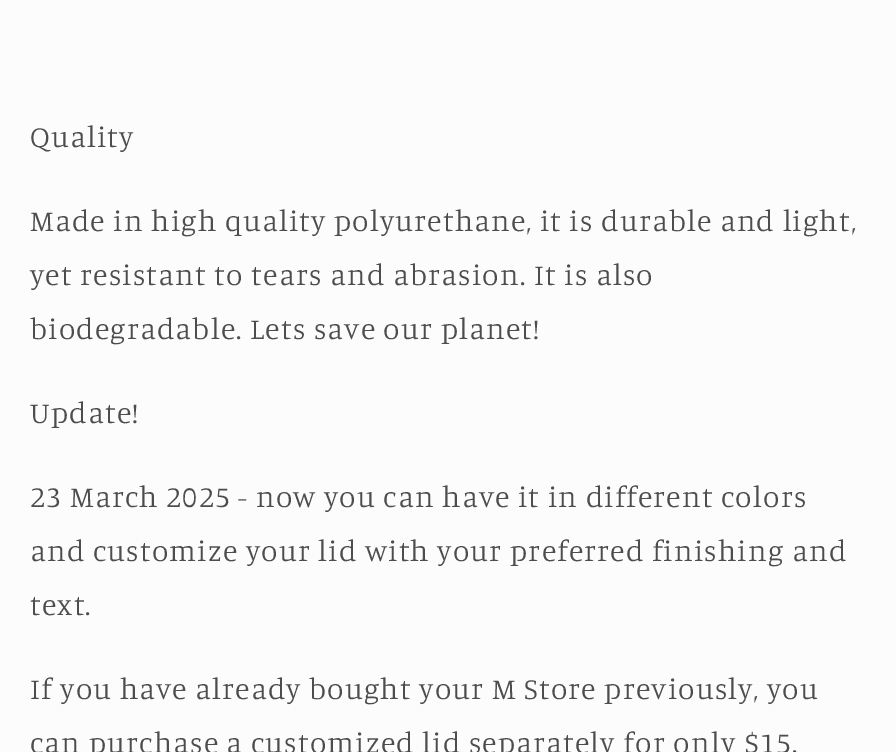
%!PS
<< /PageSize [896 752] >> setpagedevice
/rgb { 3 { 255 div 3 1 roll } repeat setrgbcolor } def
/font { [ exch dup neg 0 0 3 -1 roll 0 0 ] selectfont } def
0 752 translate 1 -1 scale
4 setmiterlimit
252 252 252 rgb
0 0 896 752 rectfill
/Manuale-Light 30 font
77 77 77 rgb
30 147 moveto 1.2 0 (Quality) ashow
30 231 moveto 1.2 0 (Made in high quality polyurethane, it is durable and light,) ashow
30 285 moveto 1.2 0 (yet resistant to tears and abrasion. It is also) ashow
30 339 moveto 1.2 0 (biodegradable. Lets save our planet!) ashow
30 423 moveto 1.2 0 (Update!) ashow
30 507 moveto 1.2 0 (23 March 2025 - now you can have it in different colors) ashow
30 561 moveto 1.2 0 (and customize your lid with your preferred finishing and) ashow
30 615 moveto 1.2 0 (text.) ashow
30 699 moveto 1.2 0 (If you have already bought your M Store previously, you) ashow
30 753 moveto 1.2 0 (can purchase a customized lid separately for only $15.) ashow
showpage
